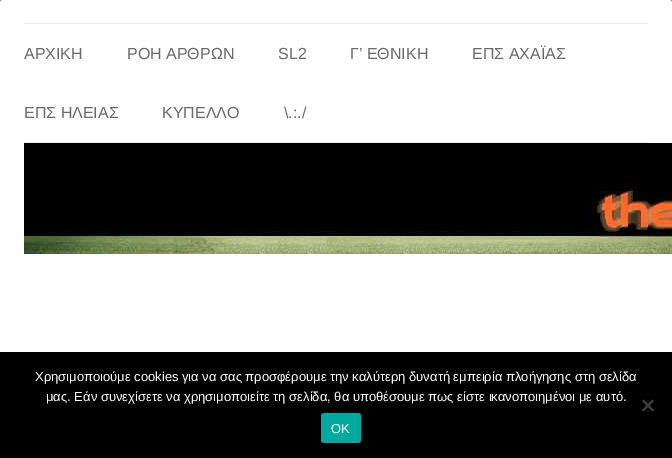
%!PS
<< /PageSize [672 458] >> setpagedevice
/rgb { 3 { 255 div 3 1 roll } repeat setrgbcolor } def
/font { [ exch dup neg 0 0 3 -1 roll 0 0 ] selectfont } def
/roundrect { 5 dict begin { /r /h /w /y /x } { exch def } forall
  x r add y moveto x w add y 2 copy h add r arct x w add y h add x 1 index r arct
  x y h add x y r arct x y 2 copy exch w add exch r arct closepath end } def
/picture { 5 dict begin { /h /w /y /x /name } { exch def } forall
  gsave x y translate w h scale
  w h 8 [w 0 0 h 0 0] name (r) file false 3 colorimage grestore end } def
0 458 translate 1 -1 scale
4 setmiterlimit
255 255 255 rgb
0 0 672 458 rectfill
(img/1.rgb) 0 0 672 3 picture
0 0 672 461 3 roundrect fill
237 237 237 rgb
24 23 624 1 rectfill
24 142 624 1 rectfill
(img/2.rgb) 24 143 648 111 picture
0 0 0 rgb
0 352 672 106 rectfill
64 64 64 rgb
652.5 399.5 moveto 654 401 lineto 643.5 411.5 lineto 642 410 lineto closepath fill
642 401 moveto 643.5 399.5 lineto 654 410 lineto 652.5 411.5 lineto closepath fill
0 169 157 rgb
321 413 40 30 3 roundrect fill
/LiberationSans-Regular 16 font
106 106 106 rgb
[
  [(ΑΡΧΙΚΗ) 24 59]
  [(ΡΟΗ ΑΡΘΡΩΝ) 127 59]
  [(SL2) 278 59]
  [(Γ’ ΕΘΝΙΚΗ) 350 59]
  [(ΕΠΣ ΑΧΑΪΑΣ) 472 59]
  [(ΕΠΣ ΗΛΕΙΑΣ) 24 118]
  [(ΚΥΠΕΛΛΟ) 162 118]
  [(\\.:./) 284 118]
] { aload pop moveto show } forall
/LiberationSans-Regular 13 font
255 255 255 rgb
[
  [(Χρησιμοποιούμε cookies για να σας προσφέρουμε την καλύτερη δυνατή εμπειρία πλοήγησης στη σελίδα) 35 381]
  [(μας. Εάν συνεχίσετε να χρησιμοποιείτε τη σελίδα, θα υποθέσουμε πως είστε ικανοποιημένοι με αυτό.) 46 401]
  [(ΟΚ) 331 433]
] { aload pop moveto show } forall
showpage
